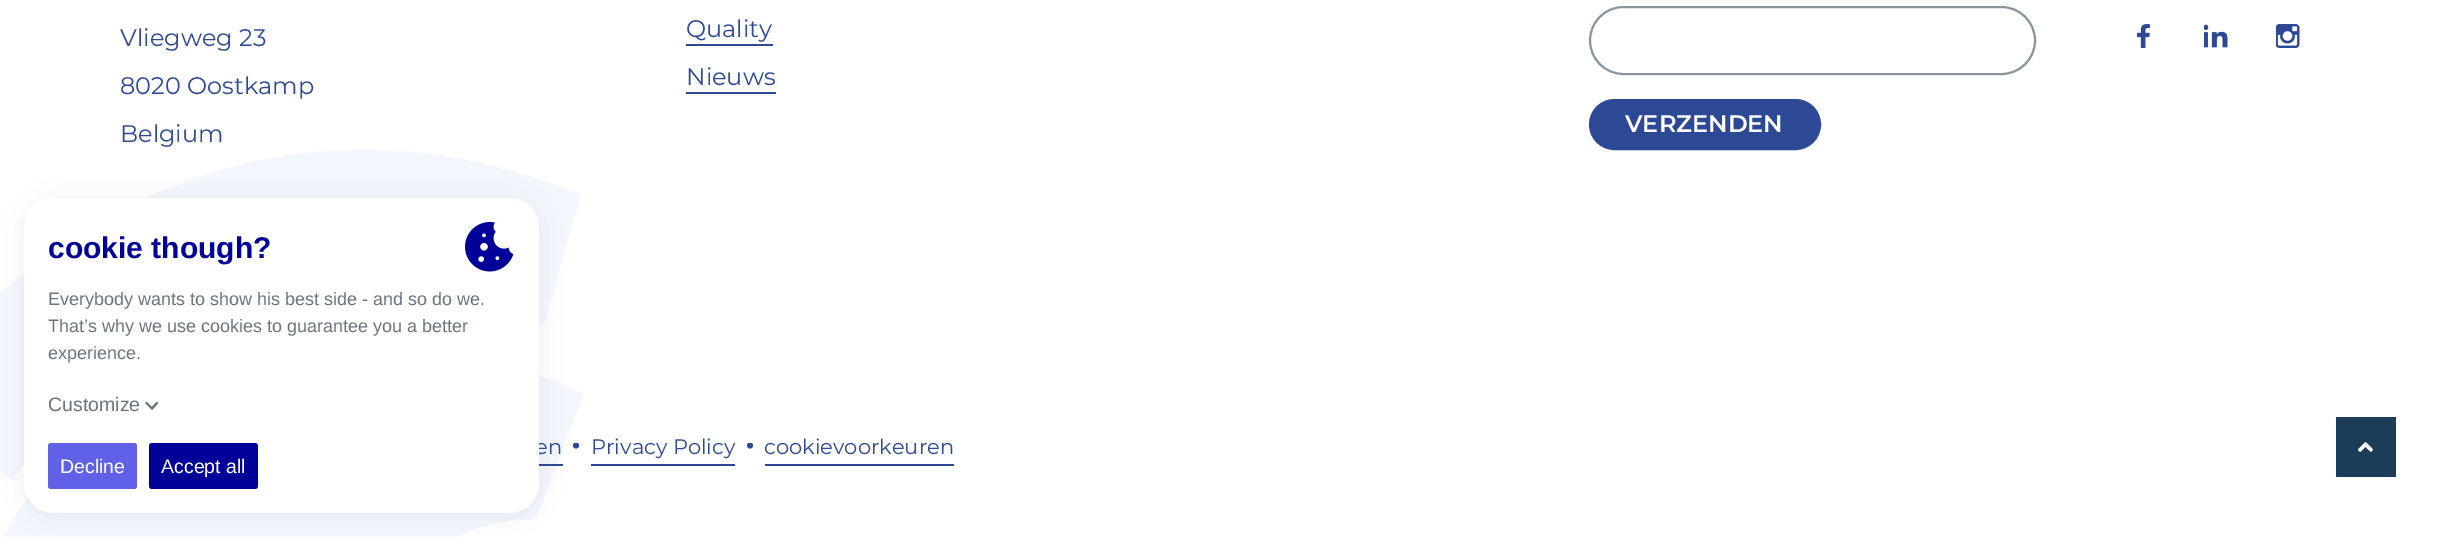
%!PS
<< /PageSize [2455 537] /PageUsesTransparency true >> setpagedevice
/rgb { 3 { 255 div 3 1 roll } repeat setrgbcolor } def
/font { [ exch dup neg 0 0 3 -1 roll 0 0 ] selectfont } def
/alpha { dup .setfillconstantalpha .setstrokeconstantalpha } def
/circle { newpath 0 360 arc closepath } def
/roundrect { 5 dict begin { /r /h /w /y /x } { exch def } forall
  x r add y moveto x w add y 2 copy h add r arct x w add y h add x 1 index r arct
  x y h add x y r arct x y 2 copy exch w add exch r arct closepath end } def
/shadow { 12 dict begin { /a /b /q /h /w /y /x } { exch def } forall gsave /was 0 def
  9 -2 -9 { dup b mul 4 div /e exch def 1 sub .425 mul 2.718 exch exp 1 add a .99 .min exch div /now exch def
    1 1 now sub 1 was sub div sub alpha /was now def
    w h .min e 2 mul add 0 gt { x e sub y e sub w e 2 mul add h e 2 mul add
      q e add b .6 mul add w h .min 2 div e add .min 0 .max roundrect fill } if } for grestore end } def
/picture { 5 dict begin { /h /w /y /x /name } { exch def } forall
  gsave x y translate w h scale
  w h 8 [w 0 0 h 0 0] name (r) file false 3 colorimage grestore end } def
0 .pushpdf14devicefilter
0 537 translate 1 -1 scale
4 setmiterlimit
255 255 255 rgb
0 0 2455 537 rectfill
(img/1.rgb) 0 149 584 388 picture
45 73 150 rgb
686 44 87 2 rectfill
686 92 90 2 rectfill
(img/2.rgb) 2137 24 13 24 picture
(img/3.rgb) 2204 24 24 24 picture
(img/4.rgb) 2276 24 24 24 picture
135 149 161 rgb
2 setlinewidth
1590 7 445 67 33.5 roundrect stroke
45 73 150 rgb
1590 100 230 49 24.5 roundrect gsave fill grestore
stroke
539 464 24 2 rectfill
gsave
573 443 6 6 rectclip
576 445.5 3 circle fill
grestore
591 464 144 2 rectfill
gsave
747 443 6 6 rectclip
750 445.5 3 circle fill
grestore
765 464 189 2 rectfill
28 61 90 rgb
2336 417 60 60 rectfill
(img/5.rgb) 2358 442 15 10 picture
1 1 63 rgb
30 207 503 303 24 14 0.1 shadow
/Montserrat-Regular 24 font
45 73 150 rgb
[
  [(Vliegweg 23) 120 46]
  [(8020 Oostkamp) 120 94]
  [(Belgium) 120 142]
  [(Quality) 686 37]
  [(Nieuws) 686 85]
] { aload pop moveto show } forall
/Montserrat-SemiBold 24 font
255 255 255 rgb
1625 132 moveto (VERZENDEN) show
/Montserrat-Regular 21 font
45 73 150 rgb
[
  [(en) 535 454]
  [(Privacy Policy) 591 454]
  [(cookievoorkeuren) 764 454]
] { aload pop moveto show } forall
255 255 255 rgb
24 198 515 315 30 roundrect fill
/LiberationSans-Bold 30 font
0 0 153 rgb
48 258 moveto (cookie though?) show
(img/6.rgb) 465 222 49 50 picture
/LiberationSans-Regular 18 font
107 114 128 rgb
[
  [(Everybody wants to show his best side - and so do we.) 48 305]
  [(That’s why we use cookies to guarantee you a better) 48 332]
  [(experience.) 48 359]
] { aload pop moveto show } forall
/LiberationSans-Regular 19.5 font
48 411 moveto (Customize) show
2.1 setlinewidth
1 setlinecap
146.5 403 moveto 152 408.5 lineto 157 403 lineto stroke
97 97 232 rgb
48 443 89 46 3 roundrect fill
255 255 255 rgb
60 473 moveto (Decline) show
0 0 153 rgb
149 443 109 46 3 roundrect fill
255 255 255 rgb
161 473 moveto (Accept all) show
.poppdf14devicefilter showpage
